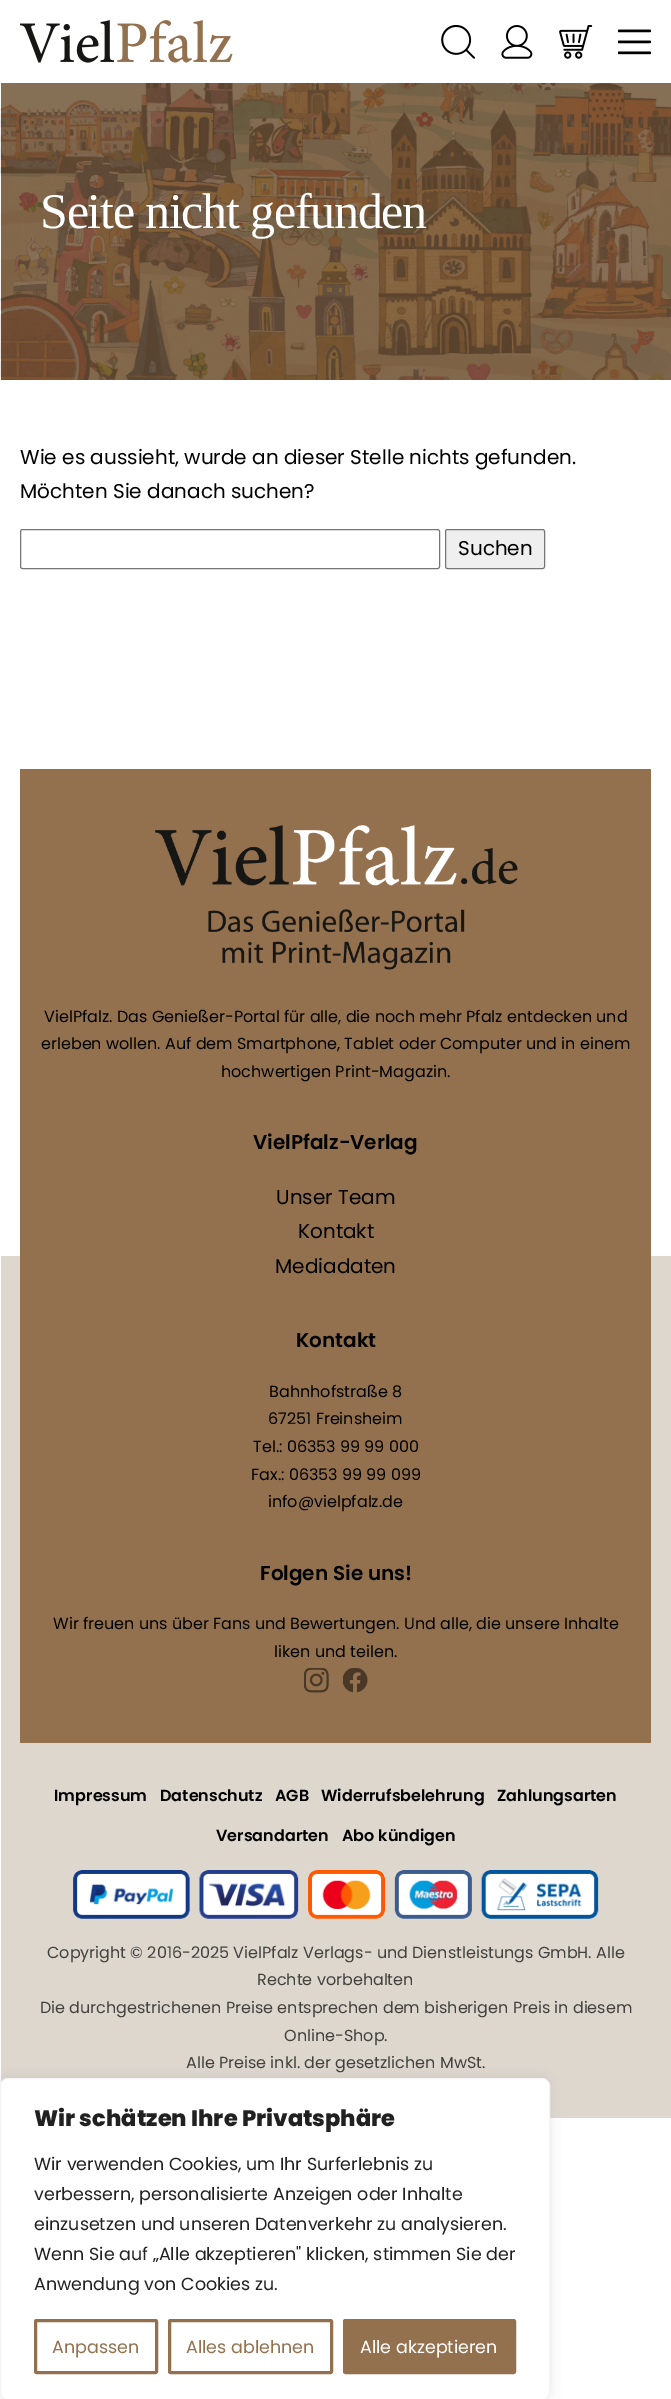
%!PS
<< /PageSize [671 2399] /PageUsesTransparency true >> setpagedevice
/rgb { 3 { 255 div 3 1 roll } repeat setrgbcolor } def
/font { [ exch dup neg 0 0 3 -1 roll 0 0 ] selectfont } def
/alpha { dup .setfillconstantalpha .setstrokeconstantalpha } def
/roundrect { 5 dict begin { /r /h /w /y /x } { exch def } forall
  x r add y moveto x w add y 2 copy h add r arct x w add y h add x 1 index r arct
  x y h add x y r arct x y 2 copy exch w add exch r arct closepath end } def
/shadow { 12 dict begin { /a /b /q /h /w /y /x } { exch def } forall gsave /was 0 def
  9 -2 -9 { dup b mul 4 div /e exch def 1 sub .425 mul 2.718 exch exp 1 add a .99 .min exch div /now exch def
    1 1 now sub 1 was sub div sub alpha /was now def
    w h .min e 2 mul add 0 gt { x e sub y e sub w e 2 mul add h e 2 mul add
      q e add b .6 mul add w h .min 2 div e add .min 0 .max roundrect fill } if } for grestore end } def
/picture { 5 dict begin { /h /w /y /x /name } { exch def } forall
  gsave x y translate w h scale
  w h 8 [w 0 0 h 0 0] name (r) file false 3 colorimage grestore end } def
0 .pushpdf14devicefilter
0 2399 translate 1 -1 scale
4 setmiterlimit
255 255 255 rgb
0 0 671 2399 rectfill
(img/1.rgb) 20 20 213 43 picture
(img/2.rgb) 441 25 34 34 picture
(img/3.rgb) 501 25 32 34 picture
(img/4.rgb) 559 25 34 34 picture
(img/5.rgb) 618 29 33 26 picture
(img/6.rgb) 0 82 671 298 picture
1 82 670 1 rectfill
118 118 118 rgb
20.5 529.5 419 39 2 roundrect stroke
239 239 239 rgb
445.5 529.5 99 39 2 roundrect gsave fill grestore
118 118 118 rgb
stroke
221 215 206 rgb
1 1256 670 862 rectfill
148 113 78 rgb
20 769 631 974 rectfill
(img/7.rgb) 155 825 363 145 picture
(img/8.rgb) 304 1668 25 25 picture
(img/9.rgb) 343 1668 25 25 picture
(img/10.rgb) 73 1870 526 49 picture
172 171 171 rgb
0 2076 550 323 8 6 0.3 shadow
255 255 255 rgb
0.5 2078.5 549 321 7.5 roundrect gsave fill grestore
244 244 244 rgb
stroke
148 113 78 rgb
3 setlinewidth
35.5 2320.5 121 52 1 roundrect stroke
169.5 2320.5 162 52 1 roundrect stroke
344.5 2320.5 170 52 1 roundrect gsave fill grestore
stroke
/LiberationSerif-Regular 50 font
255 255 255 rgb
40 228 moveto -1.25 0 (Seite nicht gefunden) ashow
/Poppins-Regular 20 font
0 0 0 rgb
[
  [(Wie es aussieht, wurde an dieser Stelle nichts gefunden.) 20 464]
  [(Möchten Sie danach suchen?) 20 498]
  [(Suchen) 458 555]
] { aload pop moveto show } forall
/Poppins-Regular 16 font
[
  [(VielPfalz. Das Genießer-Portal für alle, die noch mehr Pfalz entdecken und) 44 1022]
  [(erleben wollen. Auf dem Smartphone, Tablet oder Computer und in einem) 41 1049]
  [(hochwertigen Print-Magazin.) 221 1077]
] { aload pop moveto show } forall
/Poppins-SemiBold 20 font
253 1149 moveto (VielPfalz-Verlag) show
/Poppins-Regular 20 font
[
  [(Unser Team) 276 1204]
  [(Kontakt) 298 1238]
  [(Mediadaten) 275 1273]
] { aload pop moveto show } forall
/Poppins-SemiBold 20 font
296 1347 moveto (Kontakt) show
/Poppins-Regular 16 font
[
  [(Bahnhofstraße 8) 269 1397]
  [(67251 Freinsheim) 268 1424]
  [(Tel.: 06353 99 99 000) 253 1452]
  [(Fax.: 06353 99 99 099) 251 1480]
  [(info@vielpfalz.de) 268 1507]
] { aload pop moveto show } forall
/Poppins-SemiBold 20 font
260 1580 moveto (Folgen Sie uns!) show
/Poppins-Regular 16 font
53 1629 moveto (Wir freuen uns über Fans und Bewertungen. Und alle, die unsere Inhalte) show
274 1657 moveto (liken und teilen.) show
/Poppins-SemiBold 16 font
[
  [(Impressum) 54 1801]
  [(Datenschutz) 160 1801]
  [(AGB) 275 1801]
  [(Widerrufsbelehrung) 321 1801]
  [(Zahlungsarten) 497 1801]
  [(Versandarten) 216 1841]
  [(Abo kündigen) 342 1841]
] { aload pop moveto show } forall
/Poppins-Regular 16 font
66 65 62 rgb
[
  [(Copyright © 2016-2025 VielPfalz Verlags- und Dienstleistungs GmbH. Alle) 47 1958]
  [(Rechte vorbehalten) 257 1985]
  [(Die durchgestrichenen Preise entsprechen dem bisherigen Preis in diesem) 40 2013]
  [(Online-Shop.) 284 2041]
  [(Alle Preise inkl. der gesetzlichen MwSt.) 186 2068]
] { aload pop moveto show } forall
/Poppins-ExtraBold 22.5 font
33 33 33 rgb
34 2126 moveto (Wir schätzen Ihre Privatsphäre) show
/Poppins-Regular 17.5 font
[
  [(Wir verwenden Cookies, um Ihr Surferlebnis zu) 34 2170]
  [(verbessern, personalisierte Anzeigen oder Inhalte) 34 2200]
  [(einzusetzen und unseren Datenverkehr zu analysieren.) 34 2230]
  [(Wenn Sie auf „Alle akzeptieren" klicken, stimmen Sie der) 34 2260]
  [(Anwendung von Cookies zu.) 34 2290]
] { aload pop moveto show } forall
148 113 78 rgb
52 2353 moveto (Anpassen) show
186 2353 moveto (Alles ablehnen) show
255 255 255 rgb
360 2353 moveto (Alle akzeptieren) show
.poppdf14devicefilter showpage
